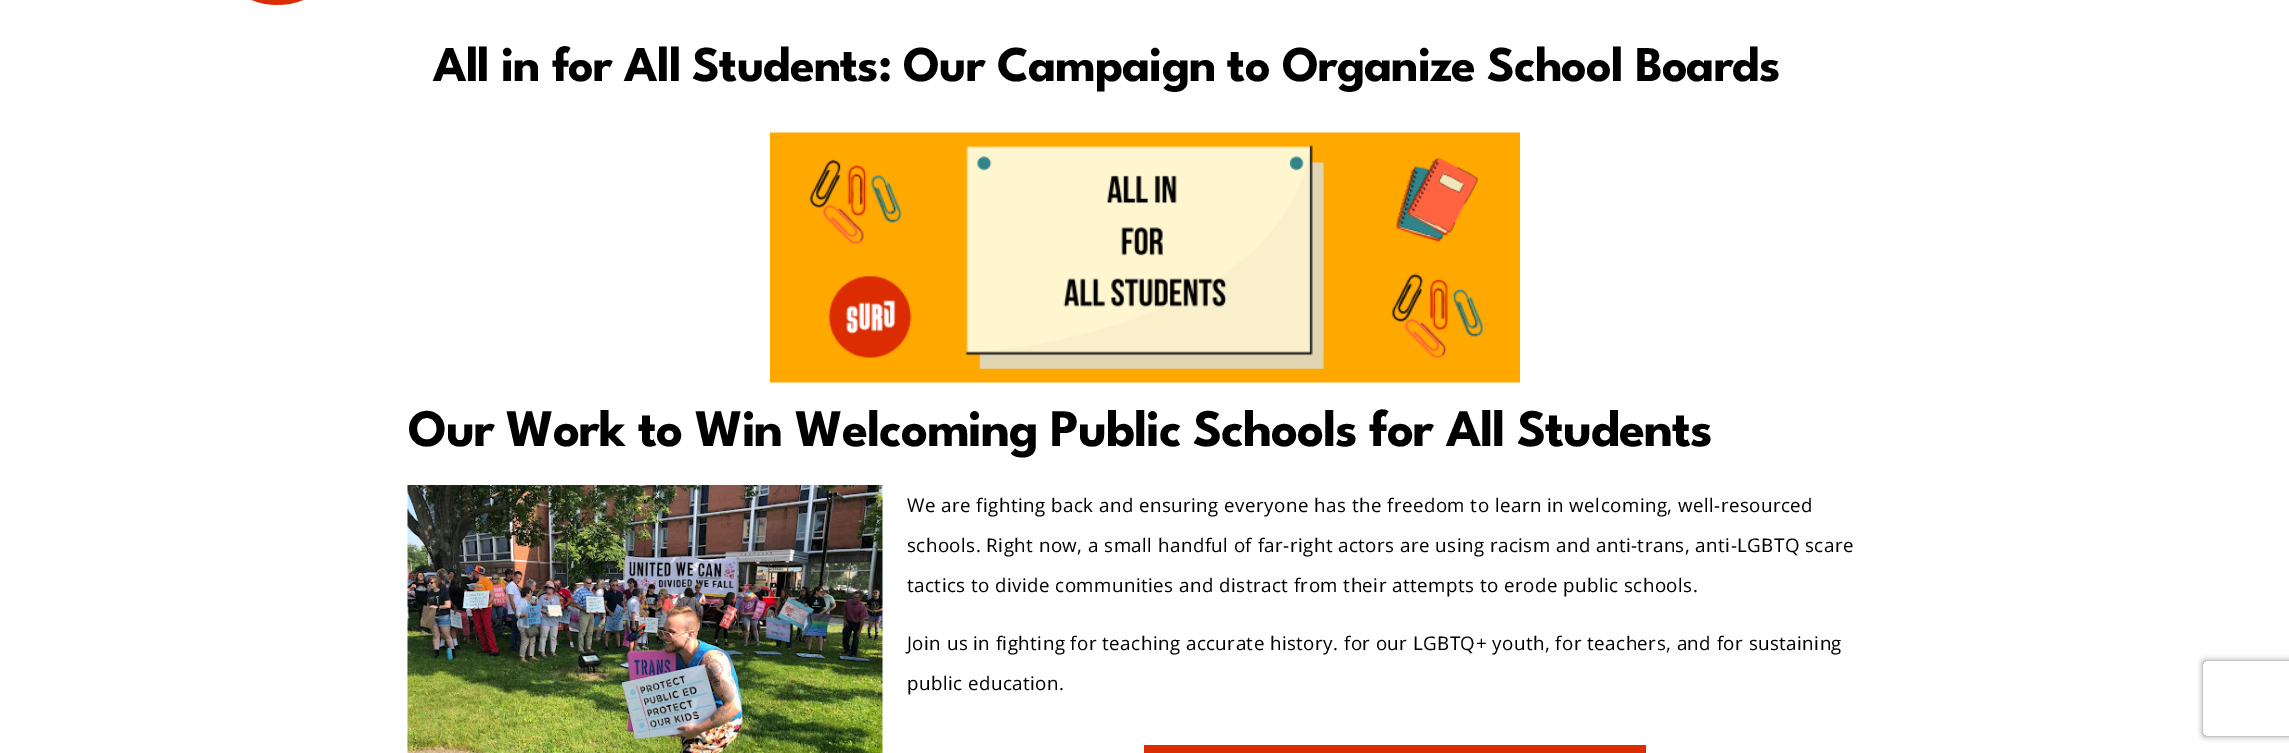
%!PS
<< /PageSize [2289 753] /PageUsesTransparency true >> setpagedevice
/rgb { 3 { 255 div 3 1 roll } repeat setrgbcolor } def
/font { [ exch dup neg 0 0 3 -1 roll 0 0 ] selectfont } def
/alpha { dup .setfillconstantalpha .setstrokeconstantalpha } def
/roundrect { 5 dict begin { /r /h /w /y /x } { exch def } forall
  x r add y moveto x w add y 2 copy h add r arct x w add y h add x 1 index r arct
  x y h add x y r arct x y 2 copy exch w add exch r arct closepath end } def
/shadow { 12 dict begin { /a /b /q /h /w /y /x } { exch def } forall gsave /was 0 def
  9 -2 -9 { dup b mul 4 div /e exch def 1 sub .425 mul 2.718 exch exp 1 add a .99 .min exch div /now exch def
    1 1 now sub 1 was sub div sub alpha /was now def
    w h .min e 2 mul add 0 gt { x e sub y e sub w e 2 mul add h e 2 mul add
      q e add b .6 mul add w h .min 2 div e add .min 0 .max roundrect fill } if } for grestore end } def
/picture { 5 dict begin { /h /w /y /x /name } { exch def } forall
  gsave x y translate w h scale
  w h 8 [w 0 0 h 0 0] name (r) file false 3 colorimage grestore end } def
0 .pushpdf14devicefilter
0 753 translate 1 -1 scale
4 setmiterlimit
255 255 255 rgb
0 0 2289 753 rectfill
(img/1.rgb) 251 0 53 5 picture
(img/2.rgb) 770 132 750 251 picture
(img/3.rgb) 407 485 476 268 picture
220 44 1 rgb
1144 745 502 8 rectfill
gsave
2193 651 moveto 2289 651 lineto 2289 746 lineto 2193 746 lineto closepath 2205.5 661 moveto 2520.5 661 lineto 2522 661 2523 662 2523 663.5 curveto 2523 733.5 lineto 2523 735 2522 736 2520.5 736 curveto 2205.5 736 lineto 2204 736 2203 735 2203 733.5 curveto 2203 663.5 lineto 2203 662 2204 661 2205.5 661 curveto closepath eoclip newpath
128 128 128 rgb
2203 661 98 75 2.5 3 1 shadow
grestore
/LeagueSpartan-Bold 50 font
0 0 0 rgb
433 81 moveto -1 0 (All in for All Students: Our Campaign to Organize School Boards) ashow
/LeagueSpartan-Bold 52.5 font
408 446 moveto -1.05 0 (Our Work to Win Welcoming Public Schools for All Students) ashow
/OpenSans-Regular 18.75 font
907 512 moveto 0.45 0 (We are fighting back and ensuring everyone has the freedom to learn in welcoming, well-resourced) ashow
907 552 moveto 0.45 0 (schools. Right now, a small handful of far-right actors are using racism and anti-trans, anti-LGBTQ scare) ashow
907 592 moveto 0.45 0 (tactics to divide communities and distract from their attempts to erode public schools.) ashow
907 650 moveto 0.45 0 (Join us in fighting for teaching accurate history. for our LGBTQ+ youth, for teachers, and for sustaining) ashow
907 690 moveto 0.45 0 (public education.) ashow
.poppdf14devicefilter showpage
